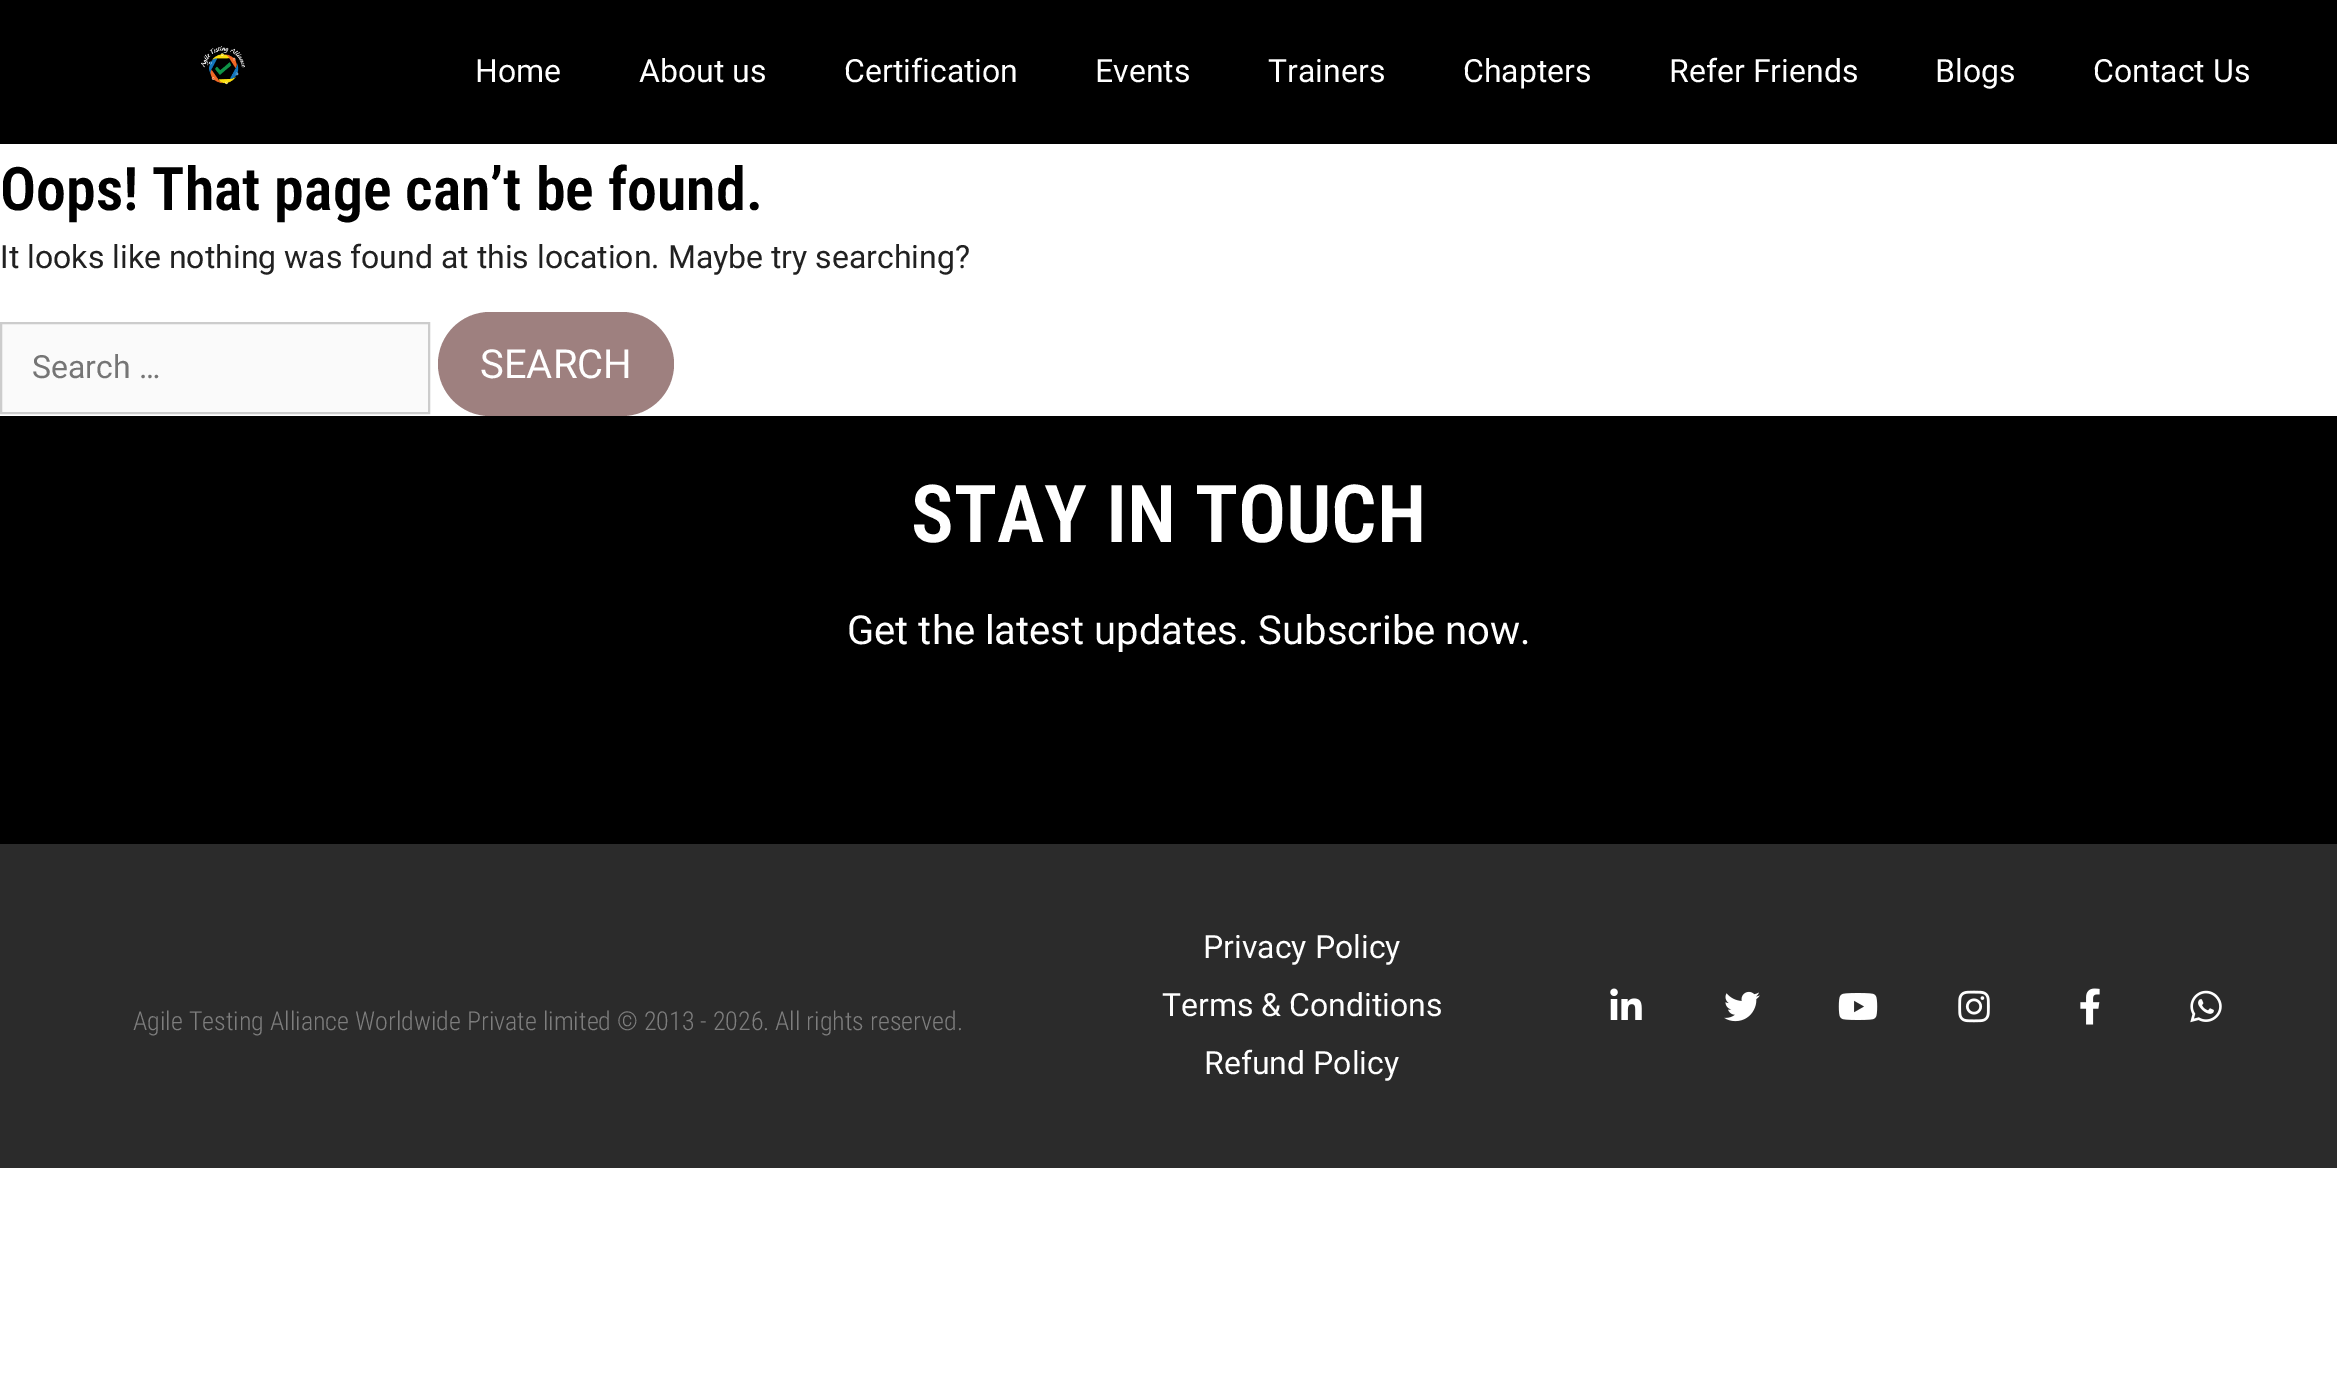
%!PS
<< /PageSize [2337 1378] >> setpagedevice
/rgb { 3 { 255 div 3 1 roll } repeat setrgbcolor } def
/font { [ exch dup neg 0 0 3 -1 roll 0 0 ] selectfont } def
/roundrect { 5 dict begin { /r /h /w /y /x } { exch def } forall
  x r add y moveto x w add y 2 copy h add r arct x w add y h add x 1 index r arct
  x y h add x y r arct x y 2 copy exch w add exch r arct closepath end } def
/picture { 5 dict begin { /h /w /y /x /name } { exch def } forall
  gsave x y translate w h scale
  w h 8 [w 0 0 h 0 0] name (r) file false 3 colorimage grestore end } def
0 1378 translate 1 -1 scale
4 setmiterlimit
255 255 255 rgb
0 0 2337 1378 rectfill
0 0 0 rgb
0 0 2337 144 rectfill
(img/1.rgb) 201 46 44 39 picture
250 250 250 rgb
1 323 moveto 429 323 lineto 429 413 lineto 1 413 lineto closepath gsave fill grestore
204 204 204 rgb
2 setlinewidth
stroke
158 128 127 rgb
438 312 236 104 52 roundrect fill
0 0 0 rgb
0 416 2337 428 rectfill
43 43 43 rgb
0 844 2337 324 rectfill
(img/2.rgb) 1610 988 32 32 picture
(img/3.rgb) 1724 991 36 31 picture
(img/4.rgb) 1838 993 40 27 picture
(img/5.rgb) 1958 990 32 33 picture
(img/6.rgb) 2080 988 20 37 picture
(img/7.rgb) 2190 990 32 33 picture
/Roboto-Regular 32 font
255 255 255 rgb
[
  [(Home) 475 82]
  [(About us) 639 82]
  [(Certification) 844 82]
  [(Events) 1095 82]
  [(Trainers) 1268 82]
  [(Chapters) 1463 82]
  [(Refer Friends) 1669 82]
  [(Blogs) 1935 82]
  [(Contact Us) 2093 82]
] { aload pop moveto show } forall
/RobotoCondensed-SemiBold 60 font
0 0 0 rgb
0 210 moveto (Oops! That page can’t be found.) show
/Roboto-Regular 32 font
33 33 33 rgb
0 268 moveto (It looks like nothing was found at this location. Maybe try searching?) show
117 117 117 rgb
32 378 moveto (Search …) show
/Roboto-Regular 40 font
255 255 255 rgb
480 378 moveto (SEARCH) show
/RobotoCondensed-SemiBold 80 font
911 542 moveto (STAY IN TOUCH) show
/Roboto-Regular 40 font
847 644 moveto (Get the latest updates. Subscribe now.) show
/RobotoCondensed-Light 26 font
126 126 126 rgb
133 1030 moveto (Agile Testing Alliance Worldwide Private limited © 2013 - 2026. All rights reserved.) show
/Roboto-Regular 32 font
255 255 255 rgb
[
  [(Privacy Policy) 1203 958]
  [(Terms & Conditions) 1162 1016]
  [(Refund Policy) 1204 1074]
] { aload pop moveto show } forall
showpage
